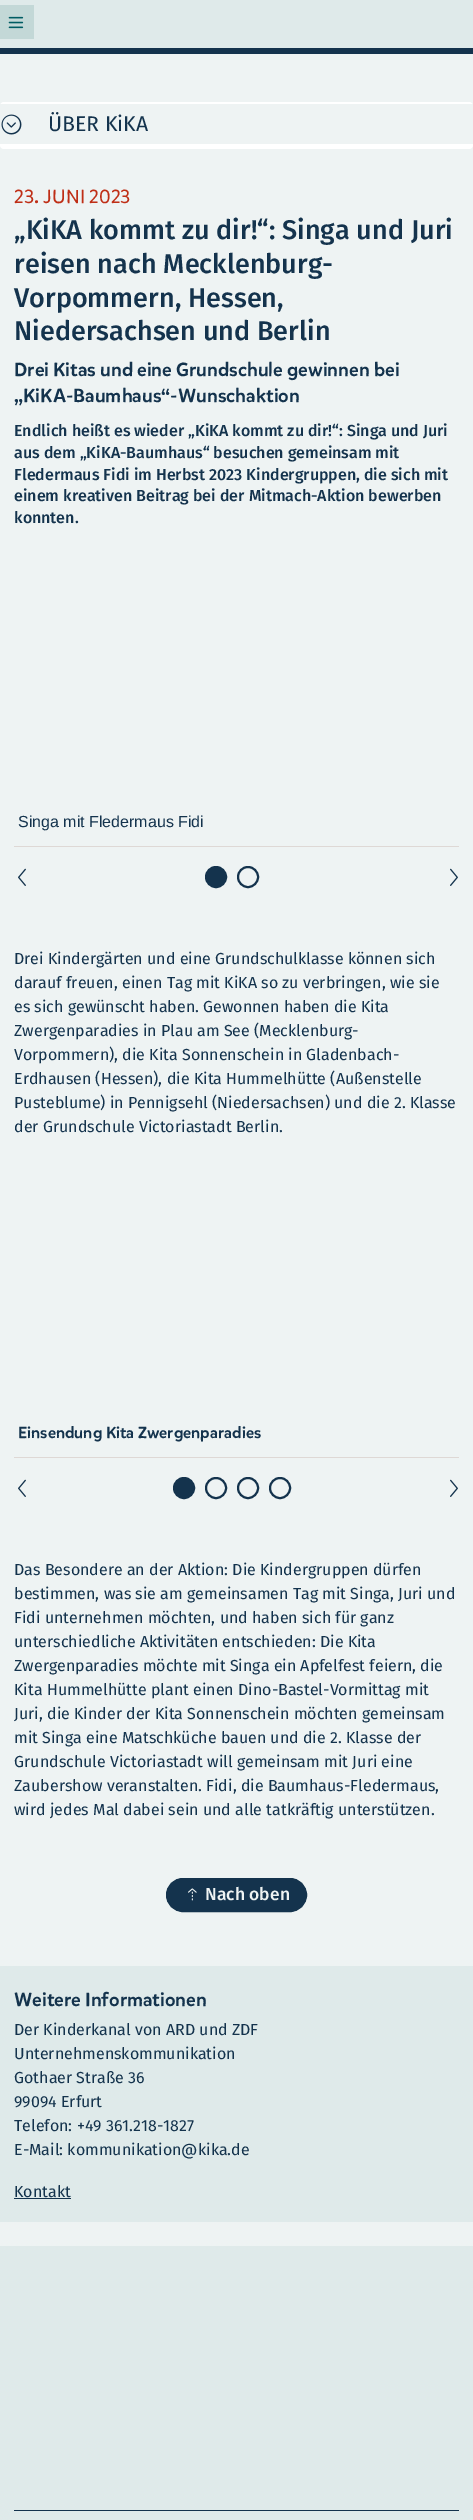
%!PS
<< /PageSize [473 2520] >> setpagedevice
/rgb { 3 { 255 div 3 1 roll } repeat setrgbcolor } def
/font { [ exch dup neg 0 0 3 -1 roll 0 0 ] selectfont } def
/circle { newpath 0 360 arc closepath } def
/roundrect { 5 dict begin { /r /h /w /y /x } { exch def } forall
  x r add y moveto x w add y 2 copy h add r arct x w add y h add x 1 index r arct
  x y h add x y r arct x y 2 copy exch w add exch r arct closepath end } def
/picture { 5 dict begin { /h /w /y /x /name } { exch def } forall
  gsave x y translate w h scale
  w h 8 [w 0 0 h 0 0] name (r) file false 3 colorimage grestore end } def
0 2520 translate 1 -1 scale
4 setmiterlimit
238 243 243 rgb
0 0 473 2520 rectfill
[
  [0 0 473 48 223 234 234]
  [0 48 473 6 20 51 77]
  [0 5 34 34 195 216 215]
] { aload pop rgb rectfill } forall
(img/1.rgb) 8 16 16 13 picture
255 255 255 rgb
0 102 473 47 4 roundrect fill
238 243 243 rgb
0 104 473 40 rectfill
(img/2.rgb) 1 114 21 21 picture
222 216 213 rgb
14 846 445 1 rectfill
20 51 77 rgb
216 877 10 circle gsave fill grestore
2 setlinewidth
stroke
248 877 10 circle stroke
(img/3.rgb) 18 868 8 18 picture
(img/4.rgb) 450 868 8 18 picture
222 216 213 rgb
14 1457 445 1 rectfill
20 51 77 rgb
184 1488 10 circle gsave fill grestore
stroke
216 1488 10 circle stroke
248 1488 10 circle stroke
280 1488 10 circle stroke
(img/3.rgb) 18 1479 8 18 picture
(img/4.rgb) 450 1479 8 18 picture
166.5 1878.5 140 33 16.5 roundrect gsave fill grestore
1 setlinewidth
stroke
(img/5.rgb) 188 1888 9 13 picture
[
  [0 1966 473 256 223 234 234]
  [14 2198 57 1 20 51 77]
  [0 2246 473 274 223 234 234]
  [14 2510 445 1 20 51 77]
] { aload pop rgb rectfill } forall
/FiraSans-Regular 21.25 font
48 131 moveto (ÜBER KiKA) show
/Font-Regular 19 font
191 46 22 rgb
14 203 moveto (23. JUNI 2023) show
/FiraSans-Medium 27 font
20 51 77 rgb
[
  [(„KiKA kommt zu dir!“: Singa und Juri) 14 239]
  [(reisen nach Mecklenburg-) 14 273]
  [(Vorpommern, Hessen,) 14 307]
  [(Niedersachsen und Berlin) 14 340]
] { aload pop moveto show } forall
/Font-Medium 19 font
14 376 moveto (Drei Kitas und eine Grundschule gewinnen bei) show
14 402 moveto („KiKA-Baumhaus“-Wunschaktion) show
/FiraSans-Medium 16 font
[
  [(Endlich heißt es wieder „KiKA kommt zu dir!“: Singa und Juri) 14 436]
  [(aus dem „KiKA-Baumhaus“ besuchen gemeinsam mit) 14 458]
  [(Fledermaus Fidi im Herbst 2023 Kindergruppen, die sich mit) 14 480]
  [(einem kreativen Beitrag bei der Mitmach-Aktion bewerben) 14 501]
  [(konnten.) 14 523]
] { aload pop moveto show } forall
/LiberationSans-Regular 16 font
18 827 moveto (Singa mit Fledermaus Fidi) show
/FiraSans-Regular 16 font
[
  [(Drei Kindergärten und eine Grundschulklasse können sich) 14 964]
  [(darauf freuen, einen Tag mit KiKA so zu verbringen, wie sie) 14 988]
  [(es sich gewünscht haben. Gewonnen haben die Kita) 14 1012]
  [(Zwergenparadies in Plau am See \(Mecklenburg-) 14 1036]
  [(Vorpommern\), die Kita Sonnenschein in Gladenbach-) 14 1060]
  [(Erdhausen \(Hessen\), die Kita Hummelhütte \(Außenstelle) 14 1084]
  [(Pusteblume\) in Pennigsehl \(Niedersachsen\) und die 2. Klasse) 14 1108]
  [(der Grundschule Victoriastadt Berlin.) 14 1132]
] { aload pop moveto show } forall
/Font-Medium 16 font
18 1438 moveto (Einsendung Kita Zwergenparadies) show
/FiraSans-Regular 16 font
[
  [(Das Besondere an der Aktion: Die Kindergruppen dürfen) 14 1575]
  [(bestimmen, was sie am gemeinsamen Tag mit Singa, Juri und) 14 1599]
  [(Fidi unternehmen möchten, und haben sich für ganz) 14 1623]
  [(unterschiedliche Aktivitäten entschieden: Die Kita) 14 1647]
  [(Zwergenparadies möchte mit Singa ein Apfelfest feiern, die) 14 1671]
  [(Kita Hummelhütte plant einen Dino-Bastel-Vormittag mit) 14 1695]
  [(Juri, die Kinder der Kita Sonnenschein möchten gemeinsam) 14 1719]
  [(mit Singa eine Matschküche bauen und die 2. Klasse der) 14 1743]
  [(Grundschule Victoriastadt will gemeinsam mit Juri eine) 14 1767]
  [(Zaubershow veranstalten. Fidi, die Baumhaus-Fledermaus,) 14 1791]
  [(wird jedes Mal dabei sein und alle tatkräftig unterstützen.) 14 1815]
] { aload pop moveto show } forall
/FiraSans-Medium 17.5 font
238 243 243 rgb
205 1900 moveto (Nach oben) show
/Font-Medium 19 font
20 51 77 rgb
14 2006 moveto (Weitere Informationen) show
/FiraSans-Regular 16 font
[
  [(Der Kinderkanal von ARD und ZDF) 14 2035]
  [(Unternehmenskommunikation) 14 2059]
  [(Gothaer Straße 36) 14 2083]
  [(99094 Erfurt) 14 2107]
  [(Telefon: +49 361.218-1827) 14 2131]
  [(E-Mail: kommunikation@kika.de) 14 2155]
  [(Kontakt) 14 2197]
] { aload pop moveto show } forall
showpage
